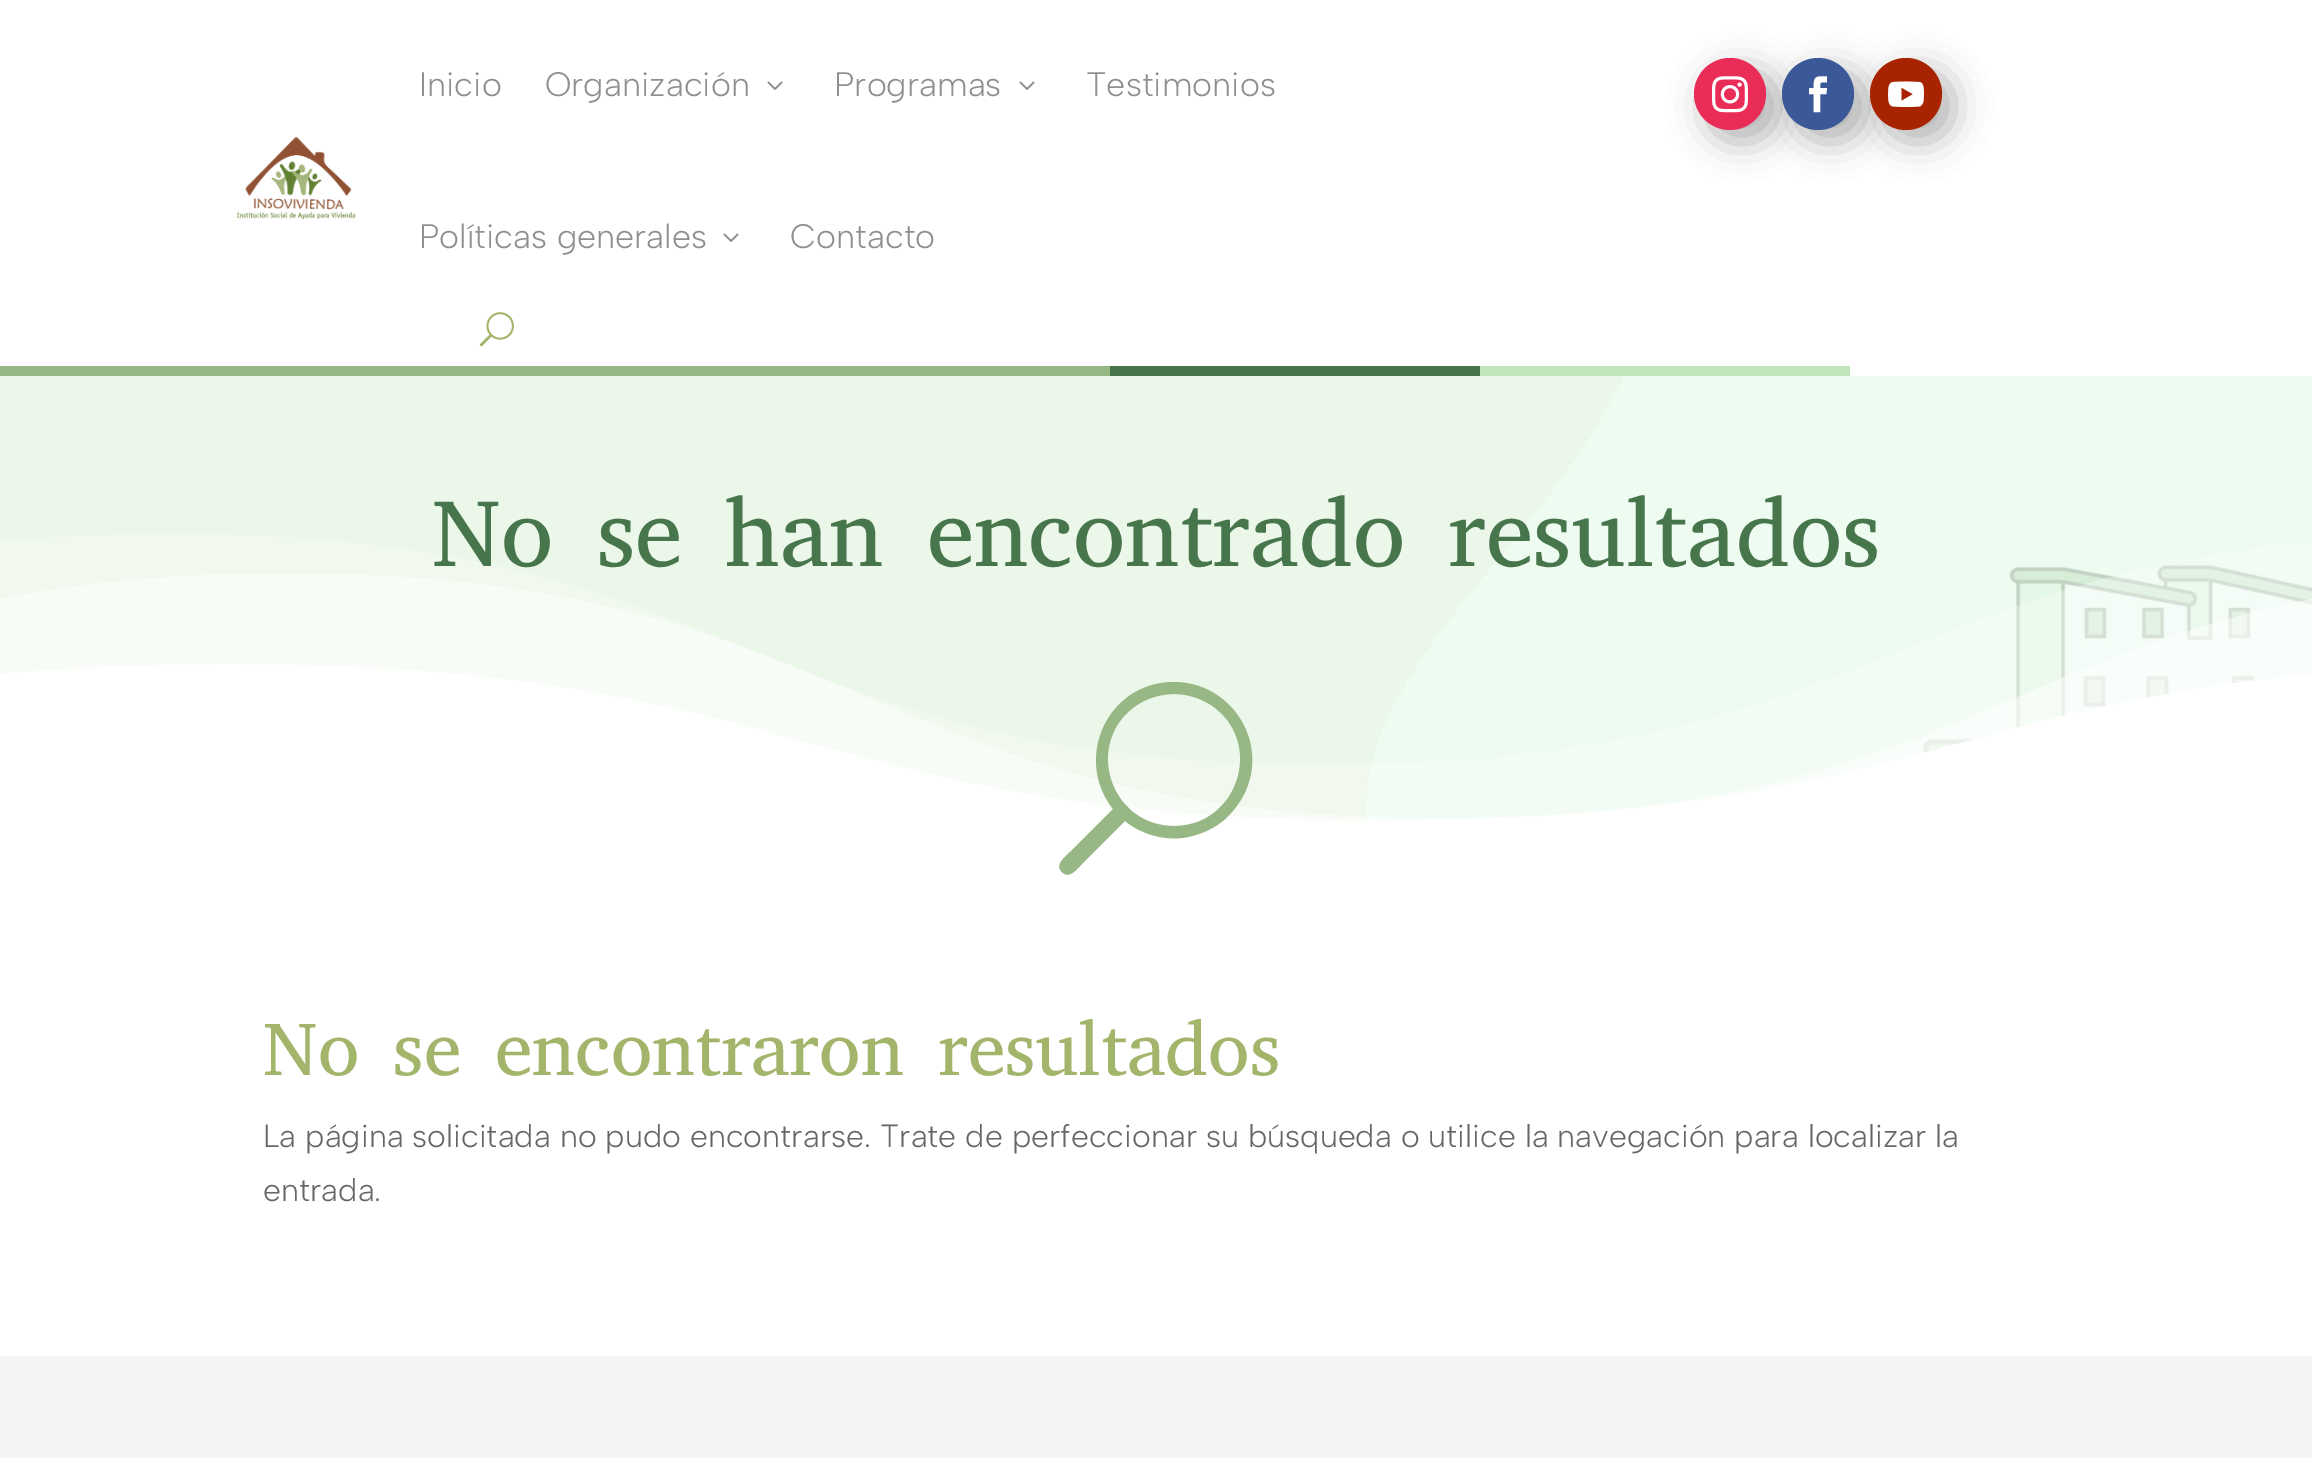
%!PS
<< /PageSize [2312 1458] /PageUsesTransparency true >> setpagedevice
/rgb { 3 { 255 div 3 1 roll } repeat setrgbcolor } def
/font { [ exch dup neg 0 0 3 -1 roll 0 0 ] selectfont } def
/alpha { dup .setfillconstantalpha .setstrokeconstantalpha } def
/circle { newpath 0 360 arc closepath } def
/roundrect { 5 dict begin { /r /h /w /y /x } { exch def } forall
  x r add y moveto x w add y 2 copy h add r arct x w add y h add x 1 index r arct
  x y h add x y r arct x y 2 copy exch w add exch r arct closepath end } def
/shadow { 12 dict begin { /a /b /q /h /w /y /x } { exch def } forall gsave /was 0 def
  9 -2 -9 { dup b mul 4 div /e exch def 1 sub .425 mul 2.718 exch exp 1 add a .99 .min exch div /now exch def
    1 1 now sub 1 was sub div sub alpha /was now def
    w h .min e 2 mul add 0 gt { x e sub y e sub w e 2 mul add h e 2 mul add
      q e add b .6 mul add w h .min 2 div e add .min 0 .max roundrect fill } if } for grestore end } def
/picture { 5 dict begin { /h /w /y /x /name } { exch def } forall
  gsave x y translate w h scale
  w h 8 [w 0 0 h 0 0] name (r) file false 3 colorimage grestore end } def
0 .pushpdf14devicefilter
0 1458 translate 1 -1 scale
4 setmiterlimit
255 255 255 rgb
0 0 2312 1458 rectfill
(img/1.rgb) 236 136 120 84 picture
(img/2.rgb) 767 81 16 9 picture
(img/2.rgb) 1019 81 16 9 picture
(img/2.rgb) 723 233 16 9 picture
(img/3.rgb) 479 312 35 35 picture
0 0 0 rgb
1706 70 72 72 36 18 0.3 shadow
234 44 89 rgb
1730 94 36 circle fill
0 0 0 rgb
1794 70 72 72 36 18 0.3 shadow
(img/4.rgb) 1712 76 36 37 picture
59 89 152 rgb
1818 94 36 circle fill
0 0 0 rgb
1882 70 72 72 36 18 0.3 shadow
(img/5.rgb) 1809 76 19 37 picture
168 36 0 rgb
1906 94 36 circle fill
(img/6.rgb) 1888 81 36 27 picture
[
  [0 366 1110 10 151 183 132]
  [1110 366 370 10 71 117 76]
  [1480 366 370 10 193 230 188]
  [0 376 1624 445 235 247 232]
] { aload pop rgb rectfill } forall
(img/7.rgb) 1365 376 947 445 picture
(img/8.rgb) 0 534 2312 382 picture
151 183 132 rgb
1174 682 moveto 1108 682 1073 758 1113 809 curveto 1070 852 lineto 1066 856 1054 865 1062 872 curveto 1069 880 1078 868 1082 864 curveto 1125 821 lineto 1141 834 1162 840 1182 838 curveto 1197 836 1212 830 1224 820 curveto 1233 812 1241 802 1246 790 curveto 1268 739 1229 682 1174 682 curveto closepath 1174 826 moveto 1109 826 1083 741 1137 705 curveto 1148 698 1161 694 1174 694 curveto 1187 694 1200 698 1211 705 curveto 1265 741 1239 826 1174 826 curveto closepath fill
244 244 244 rgb
0 1356 2312 102 rectfill
/AlbertSans-Light 34 font
143 143 143 rgb
[
  [(Inicio) 419 96]
  [(Organización) 545 96]
  [(Programas) 834 96]
  [(Testimonios) 1086 96]
  [(Políticas generales) 419 248]
  [(Contacto) 790 248]
] { aload pop moveto show } forall
/AbyssinicaSIL-Regular 96 font
71 117 76 rgb
432 566 moveto (No se han encontrado resultados) show
/AbyssinicaSIL-Regular 76 font
162 181 106 rgb
263 1075 moveto (No se encontraron resultados) show
/AlbertSans-Light 32 font
102 102 102 rgb
263 1147 moveto (La página solicitada no pudo encontrarse. Trate de perfeccionar su búsqueda o utilice la navegación para localizar la) show
263 1201 moveto (entrada.) show
.poppdf14devicefilter showpage
